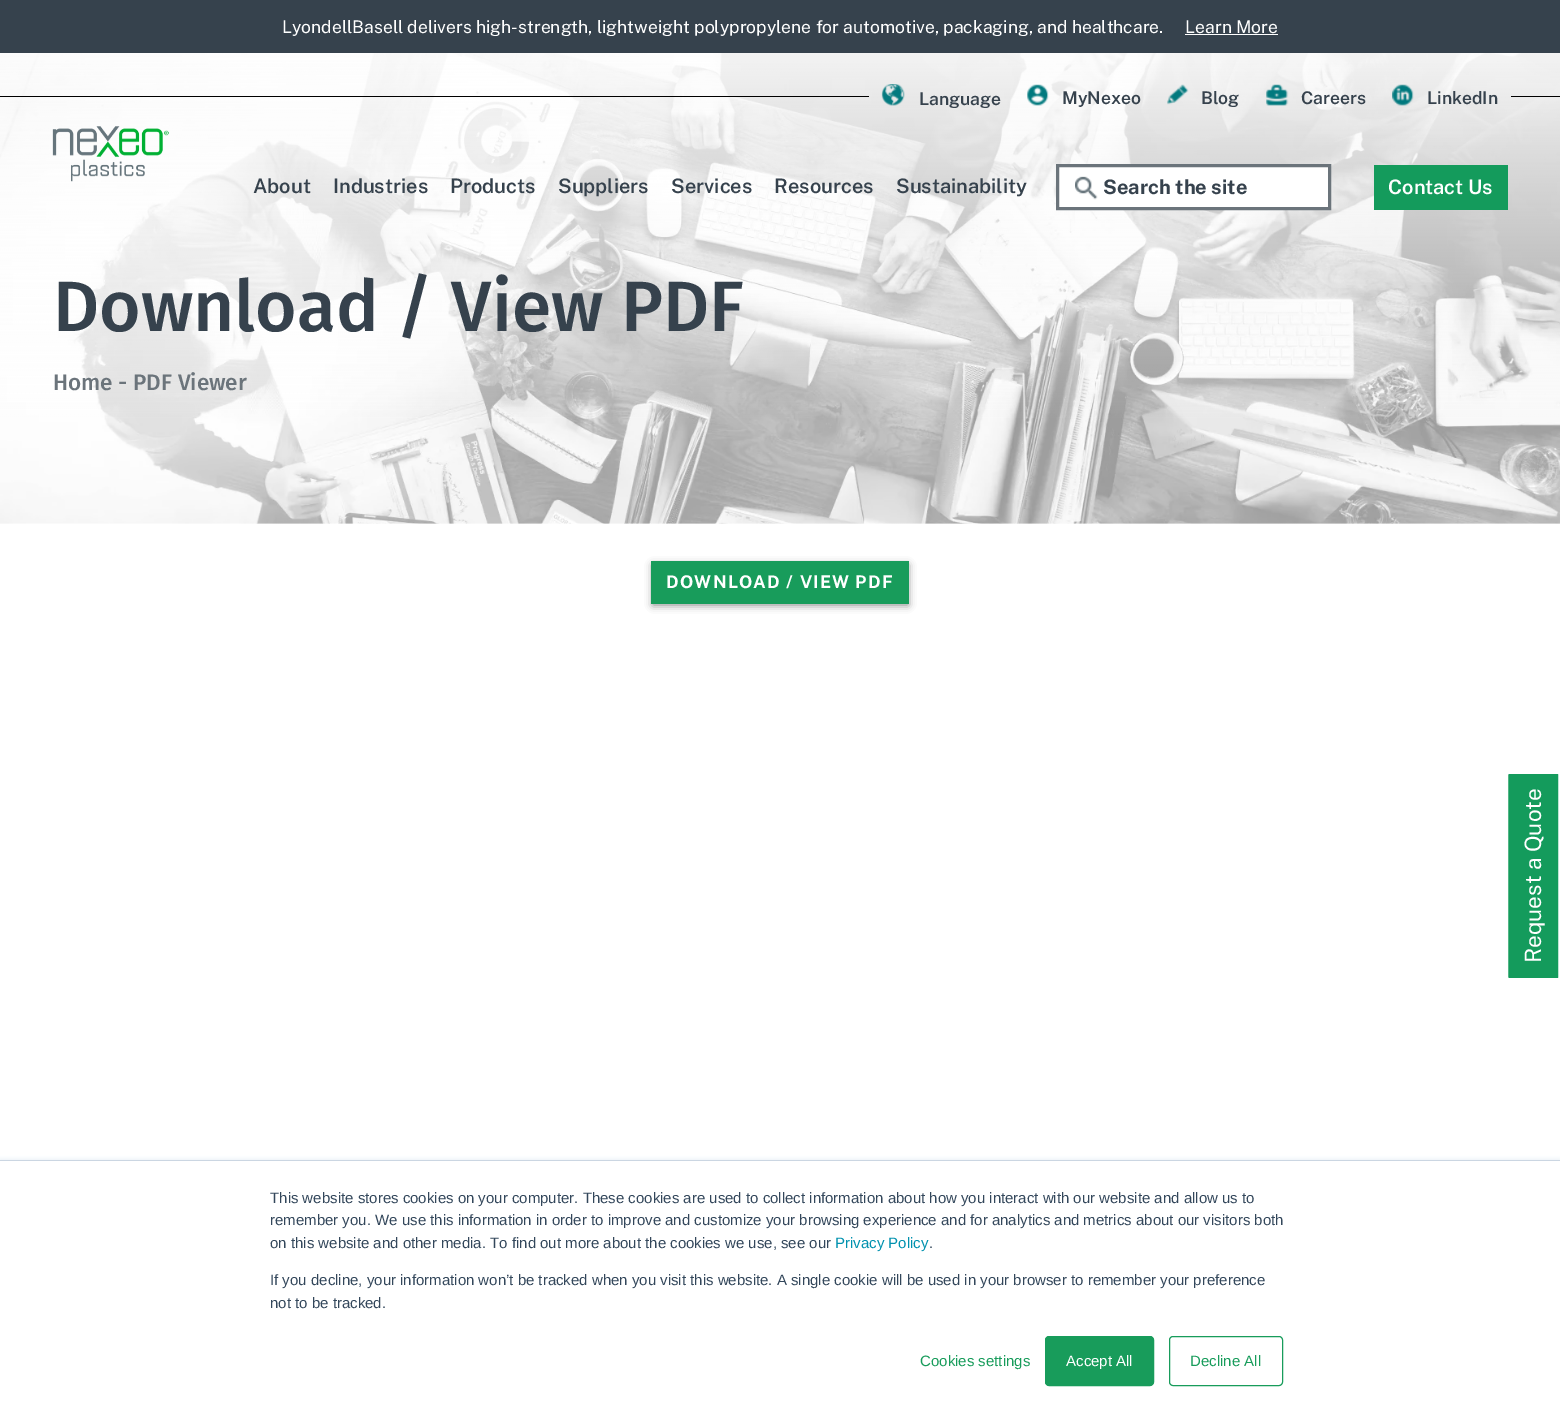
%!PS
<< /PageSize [1560 1418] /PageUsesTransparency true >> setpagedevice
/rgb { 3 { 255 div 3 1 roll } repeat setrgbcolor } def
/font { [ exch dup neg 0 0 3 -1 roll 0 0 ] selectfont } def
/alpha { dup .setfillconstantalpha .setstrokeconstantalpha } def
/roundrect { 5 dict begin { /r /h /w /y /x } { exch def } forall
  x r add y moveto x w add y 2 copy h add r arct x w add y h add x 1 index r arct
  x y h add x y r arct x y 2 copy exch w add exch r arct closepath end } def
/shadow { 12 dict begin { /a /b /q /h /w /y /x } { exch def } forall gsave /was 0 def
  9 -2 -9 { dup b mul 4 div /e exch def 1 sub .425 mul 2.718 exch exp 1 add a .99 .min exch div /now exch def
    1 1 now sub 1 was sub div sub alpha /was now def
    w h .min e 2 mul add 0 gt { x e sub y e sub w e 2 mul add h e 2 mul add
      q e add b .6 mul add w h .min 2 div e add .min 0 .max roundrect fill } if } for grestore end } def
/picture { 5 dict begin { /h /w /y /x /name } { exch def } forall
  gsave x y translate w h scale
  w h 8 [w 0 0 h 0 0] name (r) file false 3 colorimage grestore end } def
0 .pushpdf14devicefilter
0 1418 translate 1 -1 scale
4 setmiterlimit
255 255 255 rgb
0 0 1560 1418 rectfill
(img/1.rgb) 0 53 1560 471 picture
[
  [0 0 1560 53 54 66 77]
  [1185 34 93 1 255 255 255]
  [0 96 869 1 0 0 0]
] { aload pop rgb rectfill } forall
(img/2.rgb) 881 84 24 22 picture
(img/3.rgb) 1027 84 22 22 picture
(img/4.rgb) 1167 84 22 21 picture
(img/5.rgb) 1266 84 23 22 picture
(img/6.rgb) 1392 84 22 22 picture
1511 96 49 1 rectfill
(img/7.rgb) 52 126 117 56 picture
255 255 255 rgb
1057.5 165.5 moveto 1329.5 165.5 lineto 1329.5 208.5 lineto 1057.5 208.5 lineto closepath gsave fill grestore
107 116 123 rgb
3 setlinewidth
stroke
(img/8.rgb) 1075 176 23 24 picture
20 155 92 rgb
1374 165 134 45 rectfill
1509 774 49 204 rectfill
1.2 setlinewidth
1509 977 moveto 1509 775 lineto 1557.5 775 lineto 1557.5 977 lineto closepath stroke
0 0 0 rgb
653 565 255 40 0 4 0.5 shadow
24 156 91 rgb
651 561 258 43 rectfill
gsave
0 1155 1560 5 rectclip
234 240 246 rgb
0 1159 1560 259 0 2 1 shadow
grestore
203 214 226 rgb
0 1160 1560 1 rectfill
24 156 91 rgb
1045.5 1336.5 108 49 3.5 roundrect gsave fill grestore
1 setlinewidth
stroke
1169.5 1336.5 113 49 3.5 roundrect stroke
/PublicSans-Regular 17.5 font
255 255 255 rgb
282 33 moveto (LyondellBasell delivers high-strength, lightweight polypropylene for automotive, packaging, and healthcare.) show
1185 33 moveto (Learn More) show
/PublicSans-SemiBold 17.5 font
54 66 77 rgb
[
  [(Language) 919 105]
  [(MyNexeo) 1062 104]
  [(Blog) 1201 104]
  [(Careers) 1301 104]
  [(LinkedIn) 1427 104]
] { aload pop moveto show } forall
/PublicSans-SemiBold 20 font
[
  [(About) 253 193]
  [(Industries) 333 193]
  [(Products) 450 193]
  [(Suppliers) 558 193]
  [(Services) 671 193]
  [(Resources) 774 193]
  [(Sustainability) 896 193]
] { aload pop moveto show } forall
/PublicSans-Bold 20 font
1103 194 moveto (Search the site) show
/PublicSans-SemiBold 20 font
255 255 255 rgb
1388 194 moveto (Contact Us) show
/FiraSans-Medium 71.25 font
54 66 77 rgb
53 331 moveto (Download / View PDF) show
/FiraSans-Medium 22.5 font
107 116 123 rgb
53 390 moveto (Home - PDF Viewer) show
/PublicSans-Regular 22.5 font
255 255 255 rgb
gsave 1541 963 translate -90 rotate 0 0 moveto (Request a Quote) show grestore
/PublicSans-Bold 17.5 font
666 588 moveto 1.25 0 (DOWNLOAD / VIEW PDF) ashow
/LiberationSans-Regular 15 font
51 71 91 rgb
[
  [(This website stores cookies on your computer. These cookies are used to collect information about how you interact with our website and allow us to) 270 1203]
  [(remember you. We use this information in order to improve and customize your browsing experience and for analytics and metrics about our visitors both) 270 1225]
  [(on this website and other media. To find out more about the cookies we use, see our) 270 1248]
] { aload pop moveto show } forall
0 145 174 rgb
835 1248 moveto (Privacy Policy) show
51 71 91 rgb
[
  [(.) 929 1248]
  [(If you decline, your information won’t be tracked when you visit this website. A single cookie will be used in your browser to remember your preference) 270 1285]
  [(not to be tracked.) 270 1308]
] { aload pop moveto show } forall
24 156 91 rgb
920 1366 moveto (Cookies settings) show
255 255 255 rgb
1066 1366 moveto (Accept All) show
24 156 91 rgb
1190 1366 moveto (Decline All) show
.poppdf14devicefilter showpage
